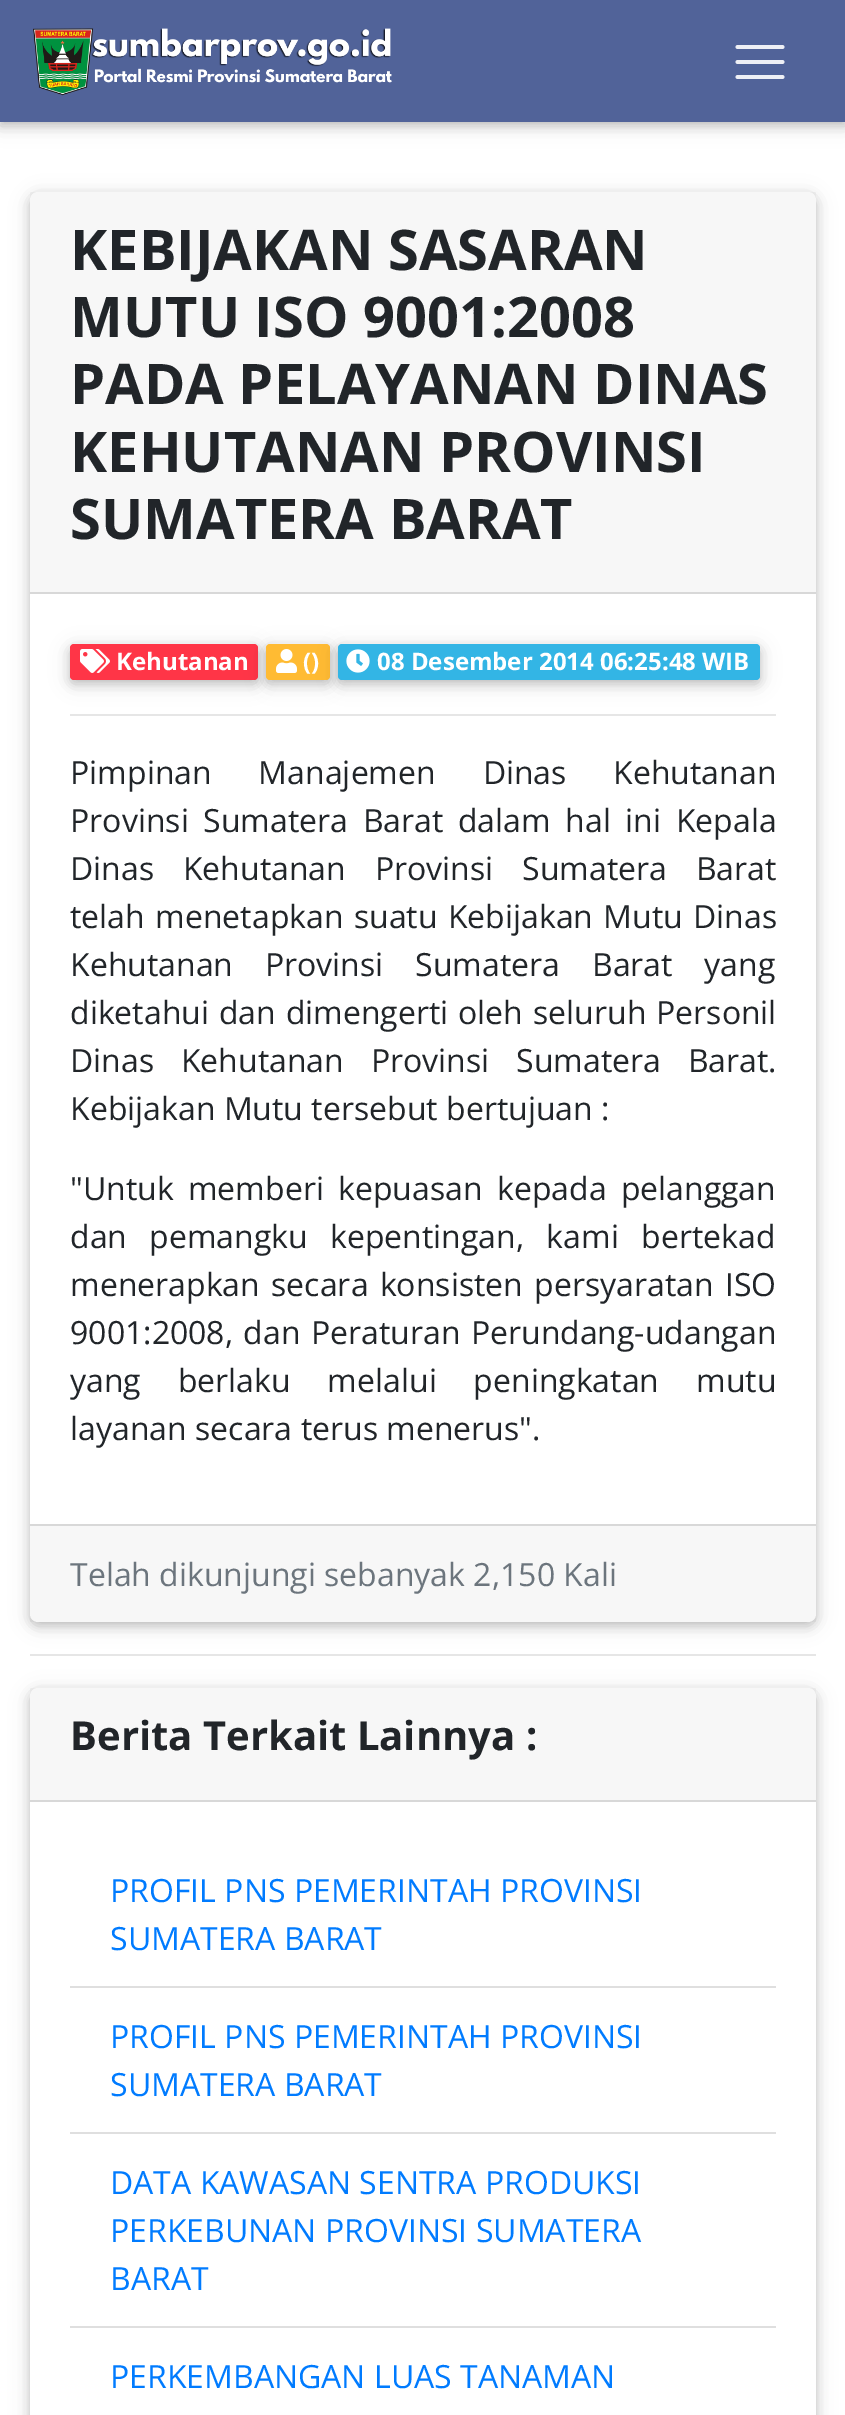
%!PS
<< /PageSize [845 2415] /PageUsesTransparency true >> setpagedevice
/rgb { 3 { 255 div 3 1 roll } repeat setrgbcolor } def
/font { [ exch dup neg 0 0 3 -1 roll 0 0 ] selectfont } def
/alpha { dup .setfillconstantalpha .setstrokeconstantalpha } def
/roundrect { 5 dict begin { /r /h /w /y /x } { exch def } forall
  x r add y moveto x w add y 2 copy h add r arct x w add y h add x 1 index r arct
  x y h add x y r arct x y 2 copy exch w add exch r arct closepath end } def
/shadow { 12 dict begin { /a /b /q /h /w /y /x } { exch def } forall gsave /was 0 def
  9 -2 -9 { dup b mul 4 div /e exch def 1 sub .425 mul 2.718 exch exp 1 add a .99 .min exch div /now exch def
    1 1 now sub 1 was sub div sub alpha /was now def
    w h .min e 2 mul add 0 gt { x e sub y e sub w e 2 mul add h e 2 mul add
      q e add b .6 mul add w h .min 2 div e add .min 0 .max roundrect fill } if } for grestore end } def
/picture { 5 dict begin { /h /w /y /x /name } { exch def } forall
  gsave x y translate w h scale
  w h 8 [w 0 0 h 0 0] name (r) file false 3 colorimage grestore end } def
0 .pushpdf14devicefilter
0 2415 translate 1 -1 scale
4 setmiterlimit
255 255 255 rgb
0 0 845 2415 rectfill
0 0 0 rgb
0 4 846 122 0 10 0.12 shadow
0 4 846 122 0 5 0.16 shadow
81 99 153 rgb
0 0 845 122 rectfill
(img/1.rgb) 33 28 359 68 picture
238 239 245 rgb
3.8 setlinewidth
1 setlinecap
737.5 47 moveto 782.5 47 lineto 737.5 62 moveto 782.5 62 lineto 737.5 77 moveto 782.5 77 lineto stroke
230 230 230 rgb
30 1654 786 2 rectfill
0 0 0 rgb
30 196 786 1430 8 10 0.12 shadow
30 196 786 1430 8 5 0.16 shadow
255 255 255 rgb
30 192 786 1430 8 roundrect fill
0.03 alpha
[
  [30 192 786 400 0 0 0]
] { aload pop rgb rectfill } forall
1 alpha
[
  [30 592 786 2 216 216 216]
  [70 714 706 2 230 230 230]
] { aload pop rgb rectfill } forall
0 0 0 rgb
70 648 188 36 4 10 0.12 shadow
70 648 188 36 4 5 0.16 shadow
255 53 71 rgb
70 644 188 36 4 roundrect fill
(img/2.rgb) 80 649 30 24 picture
0 0 0 rgb
266 648 64 36 4 10 0.12 shadow
266 648 64 36 4 5 0.16 shadow
255 187 51 rgb
266 644 64 36 4 roundrect fill
(img/3.rgb) 276 649 21 24 picture
0 0 0 rgb
338 648 422 36 4 10 0.12 shadow
338 648 422 36 4 5 0.16 shadow
51 181 229 rgb
338 644 422 36 4 roundrect fill
(img/4.rgb) 346 649 24 24 picture
0.03 alpha
0 0 0 rgb
30 1526 786 96 rectfill
1 alpha
216 216 216 rgb
30 1524 786 2 rectfill
0 0 0 rgb
30 1692 786 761 8 10 0.12 shadow
30 1692 786 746 8 5 0.16 shadow
255 255 255 rgb
30 1688 786 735 8 roundrect fill
0.03 alpha
[
  [30 1688 786 112 0 0 0]
] { aload pop rgb rectfill } forall
1 alpha
[
  [30 1800 786 2 216 216 216]
  [70 1986 706 2 223 223 223]
  [70 2132 706 2 223 223 223]
  [70 2326 706 2 223 223 223]
] { aload pop rgb rectfill } forall
/OpenSans-Bold 56 font
33 37 41 rgb
[
  [(KEBIJAKAN SASARAN) 70 270]
  [(MUTU ISO 9001:2008) 70 337]
  [(PADA PELAYANAN DINAS) 70 404]
  [(KEHUTANAN PROVINSI) 70 472]
  [(SUMATERA BARAT) 70 539]
] { aload pop moveto show } forall
/OpenSans-Bold 24 font
255 255 255 rgb
[
  [(Kehutanan) 116 670]
  [(\(\)) 303 670]
  [(08 Desember 2014 06:25:48 WIB) 377 670]
] { aload pop moveto show } forall
/OpenSans-Regular 32 font
33 37 41 rgb
70 784 moveto 38.5 0 32 (Pimpinan Manajemen Dinas Kehutanan) widthshow
70 832 moveto 6.25 0 32 (Provinsi Sumatera Barat dalam hal ini Kepala) widthshow
70 880 moveto 20.5 0 32 (Dinas Kehutanan Provinsi Sumatera Barat) widthshow
70 928 moveto 2 0 32 (telah menetapkan suatu Kebijakan Mutu Dinas) widthshow
70 976 moveto 23.5 0 32 (Kehutanan Provinsi Sumatera Barat yang) widthshow
70 1024 moveto 1.5 0 32 (diketahui dan dimengerti oleh seluruh Personil) widthshow
70 1072 moveto 18.5 0 32 (Dinas Kehutanan Provinsi Sumatera Barat.) widthshow
70 1120 moveto (Kebijakan Mutu tersebut bertujuan :) show
70 1200 moveto 6 0 32 ("Untuk memberi kepuasan kepada pelanggan) widthshow
70 1248 moveto 14 0 32 (dan pemangku kepentingan, kami bertekad) widthshow
70 1296 moveto 3 0 32 (menerapkan secara konsisten persyaratan ISO) widthshow
70 1344 moveto 2 0 32 (9001:2008, dan Peraturan Perundang-udangan) widthshow
70 1392 moveto 28.5 0 32 (yang berlaku melalui peningkatan mutu) widthshow
70 1440 moveto (layanan secara terus menerus".) show
108 117 125 rgb
70 1586 moveto (Telah dikunjungi sebanyak 2,150 Kali) show
/OpenSans-Bold 40 font
33 37 41 rgb
70 1750 moveto (Berita Terkait Lainnya :) show
/OpenSans-Regular 32 font
0 123 255 rgb
[
  [(PROFIL PNS PEMERINTAH PROVINSI) 110 1902]
  [(SUMATERA BARAT) 110 1950]
  [(PROFIL PNS PEMERINTAH PROVINSI) 110 2048]
  [(SUMATERA BARAT) 110 2096]
  [(DATA KAWASAN SENTRA PRODUKSI) 110 2194]
  [(PERKEBUNAN PROVINSI SUMATERA) 110 2242]
  [(BARAT) 110 2290]
  [(PERKEMBANGAN LUAS TANAMAN) 110 2388]
] { aload pop moveto show } forall
.poppdf14devicefilter showpage
